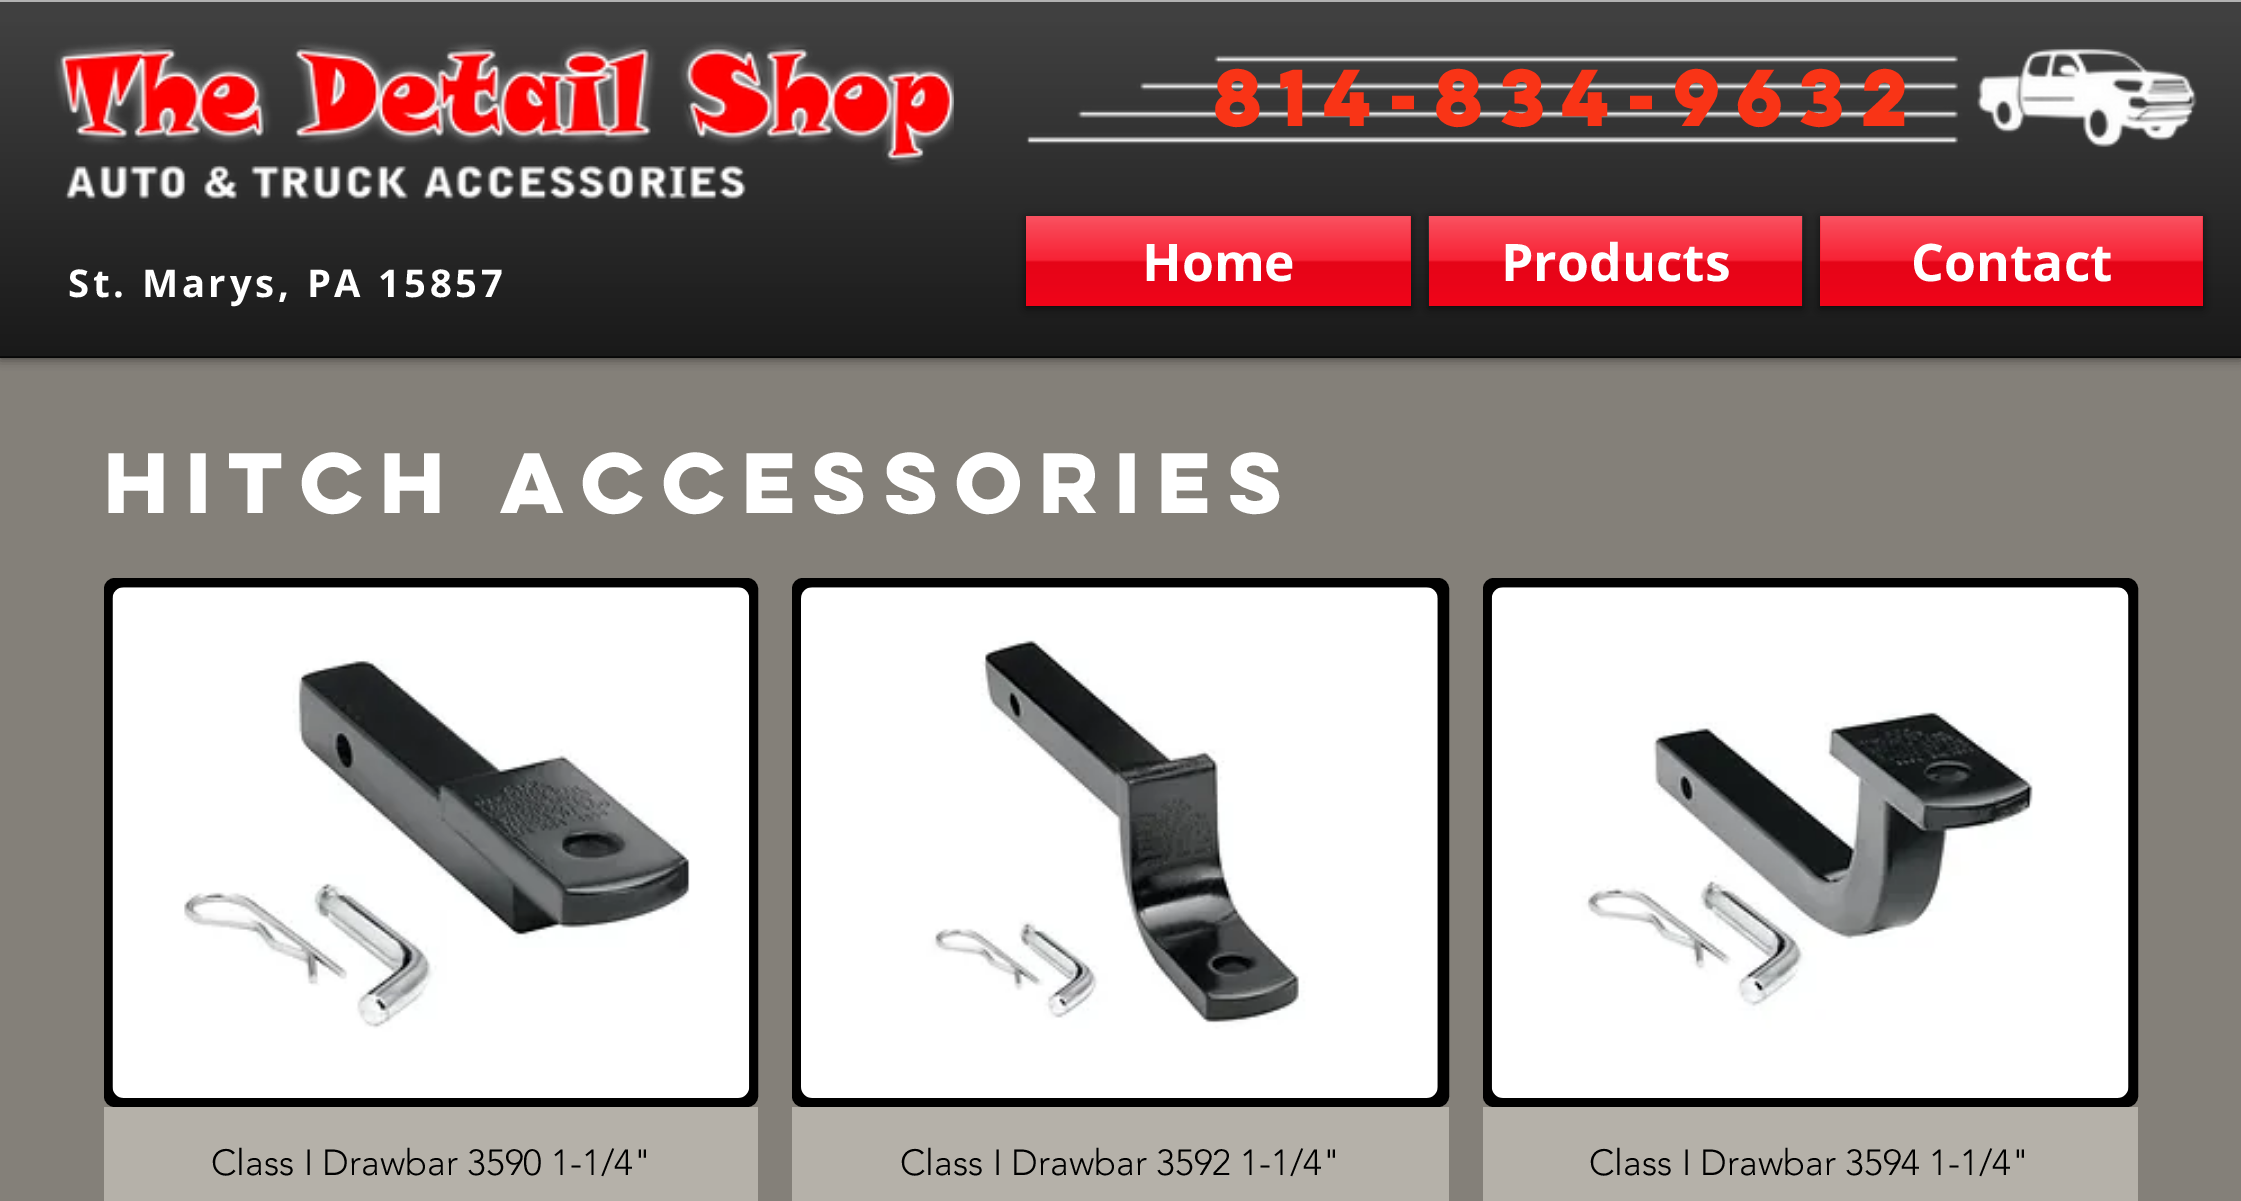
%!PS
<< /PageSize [2241 1201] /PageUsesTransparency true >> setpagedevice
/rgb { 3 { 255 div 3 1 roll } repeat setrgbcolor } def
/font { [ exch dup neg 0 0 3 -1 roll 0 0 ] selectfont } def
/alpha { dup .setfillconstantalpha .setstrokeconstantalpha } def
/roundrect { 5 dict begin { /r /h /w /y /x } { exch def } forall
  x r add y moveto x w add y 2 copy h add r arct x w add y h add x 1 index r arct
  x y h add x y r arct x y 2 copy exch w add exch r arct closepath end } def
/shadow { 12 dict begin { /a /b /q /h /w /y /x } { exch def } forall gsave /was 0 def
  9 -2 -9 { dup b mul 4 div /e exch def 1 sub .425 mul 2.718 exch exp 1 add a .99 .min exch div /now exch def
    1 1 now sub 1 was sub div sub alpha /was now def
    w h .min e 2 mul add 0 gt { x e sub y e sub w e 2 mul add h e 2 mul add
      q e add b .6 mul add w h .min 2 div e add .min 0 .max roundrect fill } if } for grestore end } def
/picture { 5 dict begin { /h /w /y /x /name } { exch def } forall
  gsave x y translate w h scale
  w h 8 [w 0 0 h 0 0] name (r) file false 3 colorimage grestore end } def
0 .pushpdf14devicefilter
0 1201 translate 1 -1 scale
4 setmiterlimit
132 128 121 rgb
0 0 2241 1201 rectfill
0 0 0 rgb
0 0 2241 358 0 5.5 0.6 shadow
0 2 2241 356 rectfill
(img/1.rgb) 0 2 2241 356 picture
0.6 alpha
0 356 2241 2 rectfill
1 alpha
179 179 179 rgb
0 0 2241 2 rectfill
(img/2.rgb) 54 41 900 161 picture
(img/3.rgb) 1026 47 1171 100 picture
0 0 0 rgb
1026 218 385 90 0 4.5 0.6 shadow
246 4 25 rgb
1026 216 385 90 rectfill
(img/4.rgb) 1026 216 385 90 picture
0 0 0 rgb
1429 218 373 90 0 4.5 0.6 shadow
246 4 25 rgb
1429 216 373 90 rectfill
(img/5.rgb) 1428 216 375 90 picture
0 0 0 rgb
1820 218 383 90 0 4.5 0.6 shadow
246 4 25 rgb
1820 216 383 90 rectfill
(img/6.rgb) 1820 216 383 90 picture
0 0 0 rgb
108.5 582.5 645 520 6.5 roundrect gsave fill grestore
9 setlinewidth
stroke
(img/7.rgb) 112 587 638 511 picture
181 177 169 rgb
104 1107 654 94 rectfill
0 0 0 rgb
796.5 582.5 648 520 6.5 roundrect gsave fill grestore
stroke
(img/8.rgb) 801 587 637 511 picture
181 177 169 rgb
792 1107 657 94 rectfill
0 0 0 rgb
1487.5 582.5 646 520 6.5 roundrect gsave fill grestore
stroke
(img/9.rgb) 1491 587 638 511 picture
181 177 169 rgb
1483 1107 655 94 rectfill
/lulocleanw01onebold-Bold 72 font
249 52 22 rgb
1213 126 moveto (814-834-9632) show
/OpenSans-Bold 51.75 font
255 255 255 rgb
[
  [(Home) 1142 281]
  [(Products) 1501 281]
  [(Contact) 1911 281]
] { aload pop moveto show } forall
/OpenSans-Bold 38.25 font
68 297 moveto 3.8 0 (St. Marys, PA 15857) ashow
/lulocleanw01onebold-Bold 76.5 font
104 513 moveto (Hitch Accessories) show
/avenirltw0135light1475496-Light 36 font
0 0 0 rgb
[
  [(Class I Drawbar 3590 1-1/4") 211 1175]
  [(Class I Drawbar 3592 1-1/4") 900 1175]
  [(Class I Drawbar 3594 1-1/4") 1589 1175]
] { aload pop moveto show } forall
.poppdf14devicefilter showpage
